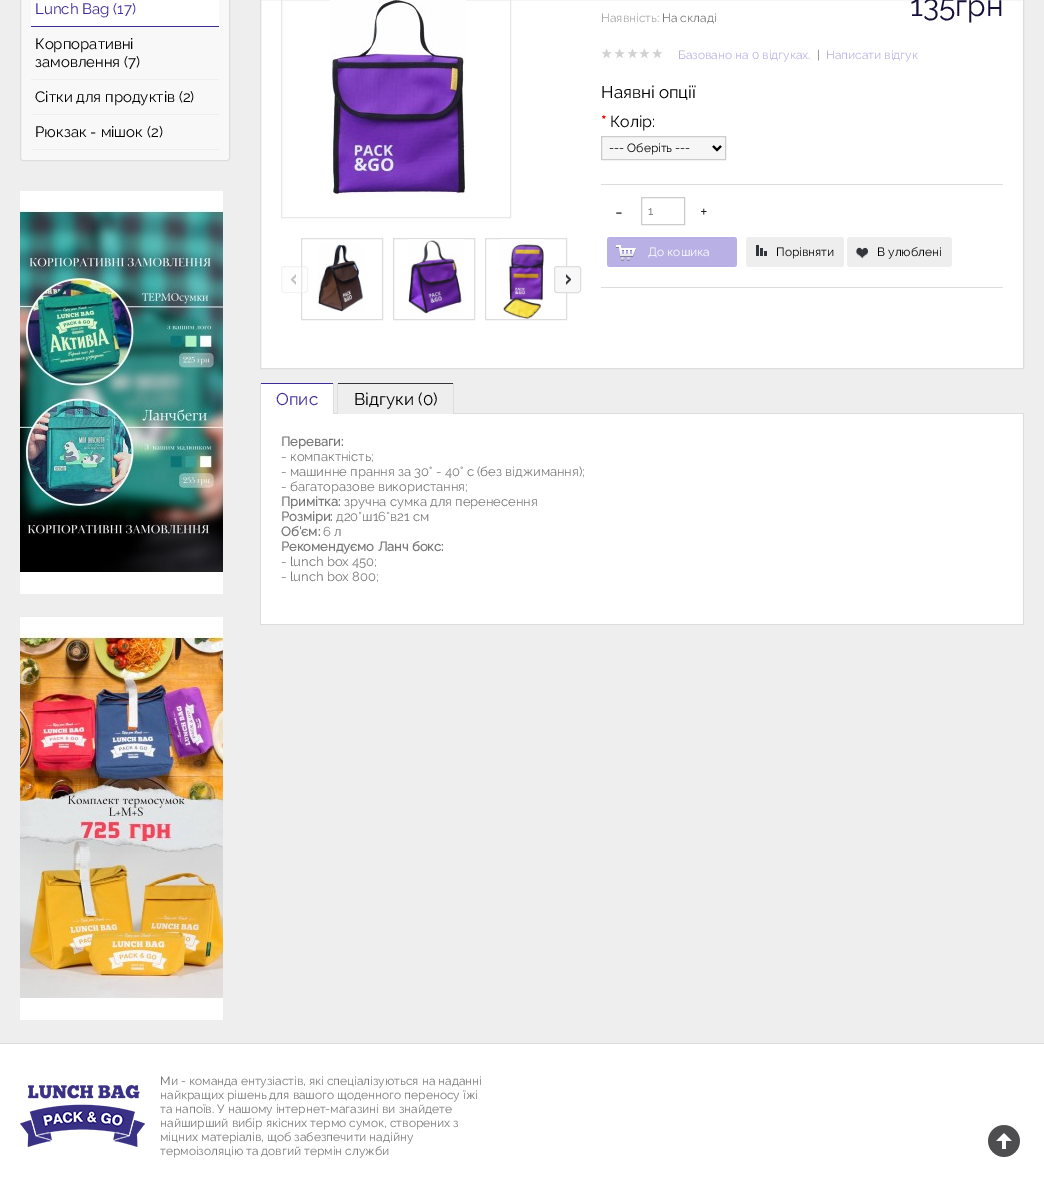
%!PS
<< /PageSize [1044 1184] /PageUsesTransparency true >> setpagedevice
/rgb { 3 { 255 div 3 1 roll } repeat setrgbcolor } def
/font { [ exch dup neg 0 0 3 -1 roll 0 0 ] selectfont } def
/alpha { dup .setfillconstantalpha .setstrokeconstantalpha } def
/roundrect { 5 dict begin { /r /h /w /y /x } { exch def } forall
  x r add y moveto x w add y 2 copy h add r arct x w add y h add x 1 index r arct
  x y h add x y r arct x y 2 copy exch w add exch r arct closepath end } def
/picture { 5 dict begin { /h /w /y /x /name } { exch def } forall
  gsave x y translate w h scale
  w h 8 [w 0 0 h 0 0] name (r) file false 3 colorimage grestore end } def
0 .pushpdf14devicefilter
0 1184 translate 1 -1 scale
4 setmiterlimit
238 238 238 rgb
0 0 1044 1184 rectfill
248 248 248 rgb
20.5 -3.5 209 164 2.5 roundrect gsave fill grestore
221 221 221 rgb
stroke
[
  [31 0 188 26 255 255 255]
  [31 26 188 1 60 43 153]
  [31 79 188 1 238 238 238]
  [31 114 188 1 238 238 238]
  [31 149 188 1 238 238 238]
] { aload pop rgb rectfill } forall
(img/1.rgb) 20 191 203 403 picture
(img/2.rgb) 20 617 203 403 picture
255 255 255 rgb
260.5 -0.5 moveto 1023.5 -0.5 lineto 1023.5 368.5 lineto 260.5 368.5 lineto closepath gsave fill grestore
221 221 221 rgb
stroke
231 231 231 rgb
281.5 -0.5 229 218 rectstroke
(img/3.rgb) 330 0 136 198 picture
221 221 221 rgb
301.5 238.5 81 81 rectstroke
0.3 alpha
248 248 248 rgb
281 266 27 27 3 roundrect fill
1 alpha
(img/4.rgb) 291 274 5 11 picture
0.3 alpha
221 221 221 rgb
281.5 266.5 26 26 2.5 roundrect stroke
1 alpha
(img/5.rgb) 317 244 47 68 picture
393.5 238.5 81 81 rectstroke
(img/6.rgb) 408 239 57 78 picture
485.5 238.5 81 81 rectstroke
(img/7.rgb) 500 239 44 80 picture
248 248 248 rgb
554 266 27 27 3 roundrect fill
(img/8.rgb) 566 274 5 11 picture
221 221 221 rgb
554.5 266.5 26 26 2.5 roundrect stroke
(img/9.rgb) 601 48 62 11 picture
246 246 246 rgb
601.5 136.5 moveto 725.5 136.5 lineto 725.5 159.5 lineto 601.5 159.5 lineto closepath gsave fill grestore
204 204 204 rgb
stroke
0 0 0 rgb
2 setlinewidth
713 146 moveto 717 150 lineto 721 146 lineto stroke
221 221 221 rgb
601 184 402 1 rectfill
601 287 402 1 rectfill
204 204 204 rgb
1 setlinewidth
641.5 197.5 43 27 rectstroke
185 177 229 rgb
607 237 130 30 3 roundrect fill
(img/10.rgb) 615 245 21 16 picture
238 238 238 rgb
746 237 98 30 3 roundrect fill
(img/11.rgb) 756 245 11 11 picture
847 237 105 30 3 roundrect fill
(img/12.rgb) 856 247 12 12 picture
[
  [334 413 690 1 221 221 221]
  [261 384 72 30 255 255 255]
  [260 383 74 1 60 43 153]
  [333 383 1 31 221 221 221]
  [260 383 1 31 221 221 221]
  [338 413 115 1 238 238 238]
  [337 383 117 1 50 53 58]
  [453 383 1 31 221 221 221]
  [337 383 1 31 221 221 221]
  [261 414 762 210 255 255 255]
  [1023 414 1 211 221 221 221]
  [260 624 764 1 221 221 221]
  [260 414 1 211 221 221 221]
  [0 1044 1044 140 255 255 255]
  [0 1043 1044 1 221 221 221]
] { aload pop rgb rectfill } forall
(img/13.rgb) 20 1085 125 65 picture
(img/14.rgb) 988 1125 32 32 picture
/Raleway-Thin 15 font
60 43 153 rgb
35 14 moveto (Lunch Bag \(17\)) show
0 0 0 rgb
[
  [(Корпоративні) 35 49]
  [(замовлення \(7\)) 35 67]
  [(Сітки для продуктів \(2\)) 35 102]
  [(Рюкзак - мішок \(2\)) 35 137]
] { aload pop moveto show } forall
/Raleway-Thin 12 font
167 167 167 rgb
601 22 moveto (Наявність:) show
119 119 119 rgb
662 22 moveto (На складі) show
/Raleway-Thin 30 font
21 15 57 rgb
910 16 moveto (135грн) show
/Raleway-Thin 12 font
185 177 229 rgb
678 59 moveto (Базовано на 0 відгуках.) show
119 119 119 rgb
817 59 moveto (|) show
185 177 229 rgb
826 59 moveto (Написати відгук) show
/Raleway-Thin 17 font
0 0 0 rgb
601 98 moveto (Наявні опції) show
/Raleway-Bold 16 font
255 0 0 rgb
601 127 moveto (*) show
/Raleway-Thin 16 font
0 0 0 rgb
610 127 moveto (Колір:) show
/Raleway-Thin 12 font
609 152 moveto (--- Оберіть ---) show
/Raleway-Thin 18 font
34 34 34 rgb
615 218 moveto (-) show
/Raleway-Thin 12 font
102 102 102 rgb
648 215 moveto (1) show
/Raleway-Thin 18 font
34 34 34 rgb
700 218 moveto (+) show
/Raleway-Thin 12 font
255 255 255 rgb
648 256 moveto (До кошика) show
0 0 0 rgb
776 256 moveto (Порівняти) show
877 256 moveto (В улюблені) show
/Raleway-Thin 17 font
60 43 153 rgb
276 405 moveto (Опис) show
0 0 0 rgb
354 405 moveto (Відгуки \(0\)) show
/Raleway-Bold 13 font
119 119 119 rgb
281 446 moveto (Переваги:) show
/Raleway-Thin 13 font
[
  [(- компактність;) 281 461]
  [(- машинне прання за 30° - 40° с \(без віджимання\);) 281 476]
  [(- багаторазове використання;) 281 491]
] { aload pop moveto show } forall
/Raleway-Bold 13 font
281 506 moveto (Примітка:) show
/Raleway-Thin 13 font
344 506 moveto (зручна сумка для перенесення) show
/Raleway-Bold 13 font
281 521 moveto (Розміри:) show
/Raleway-Thin 13 font
336 521 moveto (д20*ш16*в21 см) show
/Raleway-Bold 13 font
281 536 moveto (Об'єм:) show
/Raleway-Thin 13 font
323 536 moveto (6 л) show
/Raleway-Bold 13 font
281 551 moveto (Рекомендуємо Ланч бокс:) show
/Raleway-Thin 13 font
281 566 moveto (- lunch box 450;) show
281 581 moveto (- lunch box 800;) show
/Raleway-Thin 12 font
[
  [(Ми - команда ентузіастів, які спеціалізуються на наданні) 160 1085]
  [(найкращих рішень для вашого щоденного переносу їжі) 160 1099]
  [(та напоїв. У нашому інтернет-магазині ви знайдете) 160 1113]
  [(найширший вибір якісних термо сумок, створених з) 160 1127]
  [(міцних матеріалів, щоб забезпечити надійну) 160 1141]
  [(термоізоляцію та довгий термін служби) 160 1155]
] { aload pop moveto show } forall
.poppdf14devicefilter showpage
